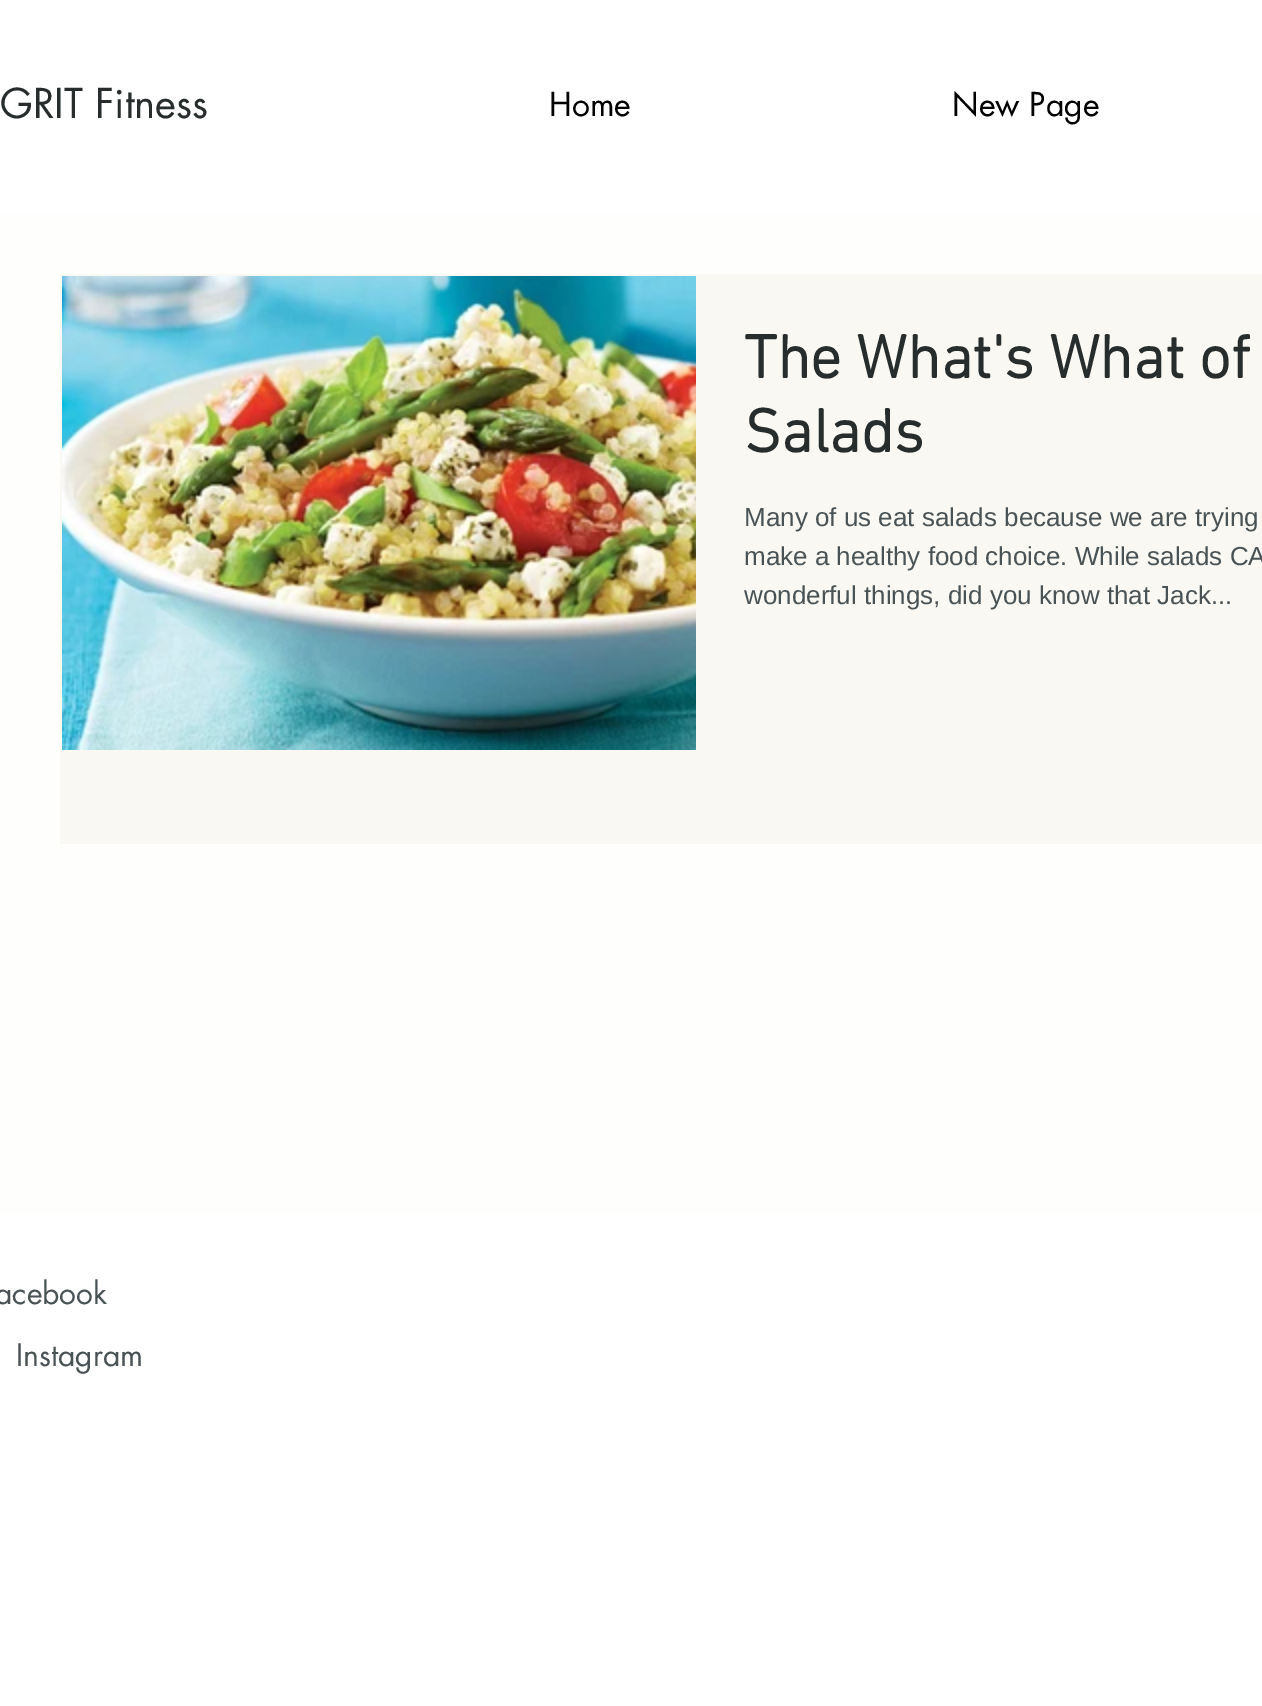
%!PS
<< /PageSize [1262 1706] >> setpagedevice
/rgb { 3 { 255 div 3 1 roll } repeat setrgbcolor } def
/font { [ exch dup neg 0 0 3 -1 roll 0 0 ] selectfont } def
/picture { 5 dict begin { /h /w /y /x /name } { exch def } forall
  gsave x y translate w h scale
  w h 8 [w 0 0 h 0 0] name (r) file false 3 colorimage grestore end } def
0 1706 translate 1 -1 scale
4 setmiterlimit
255 255 255 rgb
0 0 1262 1706 rectfill
254 254 252 rgb
0 214 1262 1000 rectfill
249 248 243 rgb
60 274 1202 570 rectfill
(img/1.rgb) 62 276 634 474 picture
/futura-Regular 40 font
39 44 45 rgb
0 118 moveto (GRIT Fitness) show
/futura-Regular 32 font
0 0 0 rgb
549 116 moveto (Home) show
952 116 moveto (New Page) show
/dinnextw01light-Bold 62 font
39 44 45 rgb
744 378 moveto (The What's What of) show
744 452 moveto (Salads) show
/LiberationSans-Regular 26 font
73 83 86 rgb
[
  [(Many of us eat salads because we are trying) 744 526]
  [(make a healthy food choice. While salads CA) 744 565]
  [(wonderful things, did you know that Jack...) 744 604]
] { aload pop moveto show } forall
/futura-Regular 30 font
-5 1304 moveto (acebook) show
16 1366 moveto (Instagram) show
showpage
